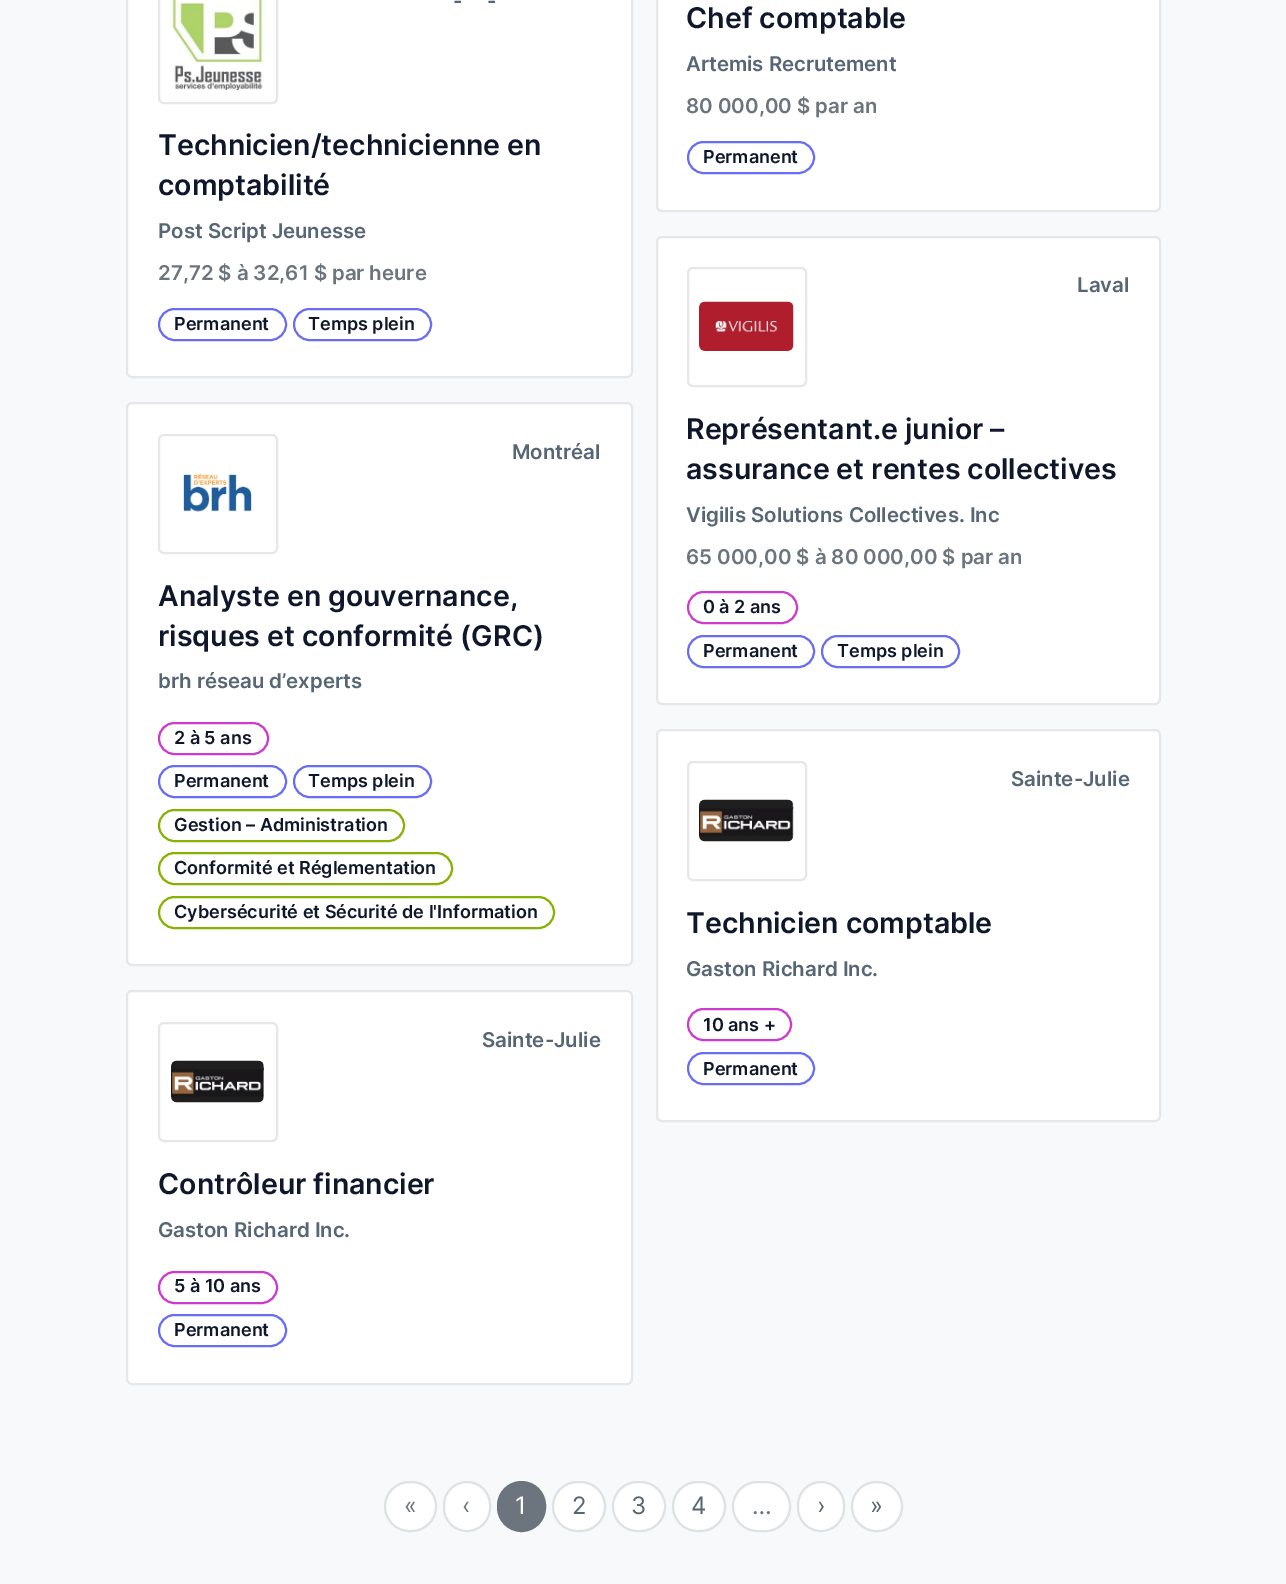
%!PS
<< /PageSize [1286 1584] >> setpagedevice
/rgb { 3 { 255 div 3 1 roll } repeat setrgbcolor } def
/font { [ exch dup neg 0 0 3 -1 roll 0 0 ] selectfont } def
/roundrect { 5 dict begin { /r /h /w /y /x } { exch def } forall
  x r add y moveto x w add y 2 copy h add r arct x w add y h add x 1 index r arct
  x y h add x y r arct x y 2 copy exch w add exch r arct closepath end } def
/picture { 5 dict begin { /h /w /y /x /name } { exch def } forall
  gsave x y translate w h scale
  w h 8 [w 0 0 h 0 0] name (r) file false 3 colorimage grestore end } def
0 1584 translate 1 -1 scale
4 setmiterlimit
248 249 250 rgb
0 0 1286 1584 rectfill
255 255 255 rgb
127 -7 505 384 5 roundrect gsave fill grestore
229 231 235 rgb
2 setlinewidth
stroke
159 -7 118 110 5 roundrect stroke
(img/1.rgb) 171 0 93 90 picture
104 109 244 rgb
159 309 127 31 15.5 roundrect stroke
294 309 137 31 15.5 roundrect stroke
255 255 255 rgb
127 403 505 562 5 roundrect gsave fill grestore
229 231 235 rgb
stroke
159 435 118 118 5 roundrect stroke
(img/2.rgb) 183 473 69 39 picture
205 58 206 rgb
159 723 109 31 15.5 roundrect stroke
104 109 244 rgb
159 766 127 31 15.5 roundrect stroke
294 766 137 31 15.5 roundrect stroke
135 177 3 rgb
159 810 245 31 15.5 roundrect stroke
159 853 293 31 15.5 roundrect stroke
159 897 395 31 15.5 roundrect stroke
255 255 255 rgb
127 991 505 393 5 roundrect gsave fill grestore
229 231 235 rgb
stroke
159 1023 118 118 5 roundrect stroke
(img/3.rgb) 171 1060 93 43 picture
205 58 206 rgb
159 1272 118 31 15.5 roundrect stroke
104 109 244 rgb
159 1315 127 31 15.5 roundrect stroke
255 255 255 rgb
657 -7 503 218 5 roundrect gsave fill grestore
229 231 235 rgb
stroke
104 109 244 rgb
688 142 126 31 15.5 roundrect stroke
255 255 255 rgb
657 237 503 467 5 roundrect gsave fill grestore
229 231 235 rgb
stroke
688 268 118 118 5 roundrect stroke
(img/4.rgb) 699 301 95 50 picture
205 58 206 rgb
688 592 109 31 15.5 roundrect stroke
104 109 244 rgb
688 636 126 31 15.5 roundrect stroke
822 636 137 31 15.5 roundrect stroke
255 255 255 rgb
657 730 503 391 5 roundrect gsave fill grestore
229 231 235 rgb
stroke
688 762 118 118 5 roundrect stroke
(img/5.rgb) 699 799 95 43 picture
205 58 206 rgb
688 1009 103 31 15.5 roundrect stroke
104 109 244 rgb
688 1053 126 31 15.5 roundrect stroke
255 255 255 rgb
385 1482 51 49 24.5 roundrect gsave fill grestore
222 226 230 rgb
stroke
255 255 255 rgb
444 1482 46 49 23 roundrect gsave fill grestore
222 226 230 rgb
stroke
108 117 125 rgb
498 1482 47 49 23.5 roundrect gsave fill grestore
stroke
255 255 255 rgb
553 1482 52 49 24.5 roundrect gsave fill grestore
222 226 230 rgb
stroke
255 255 255 rgb
613 1482 52 49 24.5 roundrect gsave fill grestore
222 226 230 rgb
stroke
255 255 255 rgb
673 1482 52 49 24.5 roundrect gsave fill grestore
222 226 230 rgb
stroke
255 255 255 rgb
733 1482 57 49 24.5 roundrect gsave fill grestore
222 226 230 rgb
stroke
255 255 255 rgb
798 1482 46 49 23 roundrect gsave fill grestore
222 226 230 rgb
stroke
255 255 255 rgb
852 1482 50 49 24.5 roundrect gsave fill grestore
222 226 230 rgb
stroke
/Inter-SemiBold 20.4 font
87 102 117 rgb
453 8 moveto (-) show
487 8 moveto (-) show
/Inter-SemiBold 28.5 font
15 23 42 rgb
158 155 moveto (Technicien/technicienne en) show
158 195 moveto (comptabilité) show
/Inter-SemiBold 20.4 font
87 102 117 rgb
158 238 moveto (Post Script Jeunesse) show
108 117 125 rgb
158 280 moveto (27,72 $ à 32,61 $ par heure) show
/Inter-SemiBold 18 font
15 23 42 rgb
174 330 moveto (Permanent) show
308 330 moveto (Temps plein) show
/Inter-SemiBold 20.4 font
87 102 117 rgb
512 459 moveto (Montréal) show
/Inter-SemiBold 28.5 font
15 23 42 rgb
158 606 moveto (Analyste en gouvernance,) show
158 646 moveto (risques et conformité \(GRC\)) show
/Inter-SemiBold 20.4 font
87 102 117 rgb
158 688 moveto (brh réseau d’experts) show
/Inter-SemiBold 18 font
15 23 42 rgb
[
  [(2 à 5 ans) 174 744]
  [(Permanent) 174 787]
  [(Temps plein) 308 787]
  [(Gestion – Administration) 174 831]
  [(Conformité et Réglementation) 174 874]
  [(Cybersécurité et Sécurité de l'Information) 174 918]
] { aload pop moveto show } forall
/Inter-SemiBold 20.4 font
87 102 117 rgb
482 1047 moveto (Sainte-Julie) show
/Inter-SemiBold 28.5 font
15 23 42 rgb
158 1194 moveto (Contrôleur financier) show
/Inter-SemiBold 20.4 font
87 102 117 rgb
158 1237 moveto (Gaston Richard Inc.) show
/Inter-SemiBold 18 font
15 23 42 rgb
174 1292 moveto (5 à 10 ans) show
174 1336 moveto (Permanent) show
/Inter-SemiBold 28.5 font
686 28 moveto (Chef comptable) show
/Inter-SemiBold 20.4 font
87 102 117 rgb
686 71 moveto (Artemis Recrutement) show
108 117 125 rgb
686 113 moveto (80 000,00 $ par an) show
/Inter-SemiBold 18 font
15 23 42 rgb
703 163 moveto (Permanent) show
/Inter-SemiBold 20.4 font
87 102 117 rgb
1077 292 moveto (Laval) show
/Inter-SemiBold 28.5 font
15 23 42 rgb
686 439 moveto (Représentant.e junior –) show
686 479 moveto (assurance et rentes collectives) show
/Inter-SemiBold 20.4 font
87 102 117 rgb
686 522 moveto (Vigilis Solutions Collectives. Inc) show
108 117 125 rgb
686 564 moveto (65 000,00 $ à 80 000,00 $ par an) show
/Inter-SemiBold 18 font
15 23 42 rgb
[
  [(0 à 2 ans) 703 613]
  [(Permanent) 703 657]
  [(Temps plein) 837 657]
] { aload pop moveto show } forall
/Inter-SemiBold 20.4 font
87 102 117 rgb
1011 786 moveto (Sainte-Julie) show
/Inter-SemiBold 28.5 font
15 23 42 rgb
686 933 moveto (Technicien comptable) show
/Inter-SemiBold 20.4 font
87 102 117 rgb
686 976 moveto (Gaston Richard Inc.) show
/Inter-SemiBold 18 font
15 23 42 rgb
703 1031 moveto (10 ans +) show
703 1075 moveto (Permanent) show
/Inter-Regular 24 font
108 117 125 rgb
404 1514 moveto («) show
462 1514 moveto (‹) show
255 255 255 rgb
515 1514 moveto (1) show
87 102 117 rgb
[
  [(2) 572 1514]
  [(3) 631 1514]
  [(4) 691 1514]
] { aload pop moveto show } forall
108 117 125 rgb
752 1514 moveto (…) show
87 102 117 rgb
817 1514 moveto (›) show
870 1514 moveto (») show
showpage
